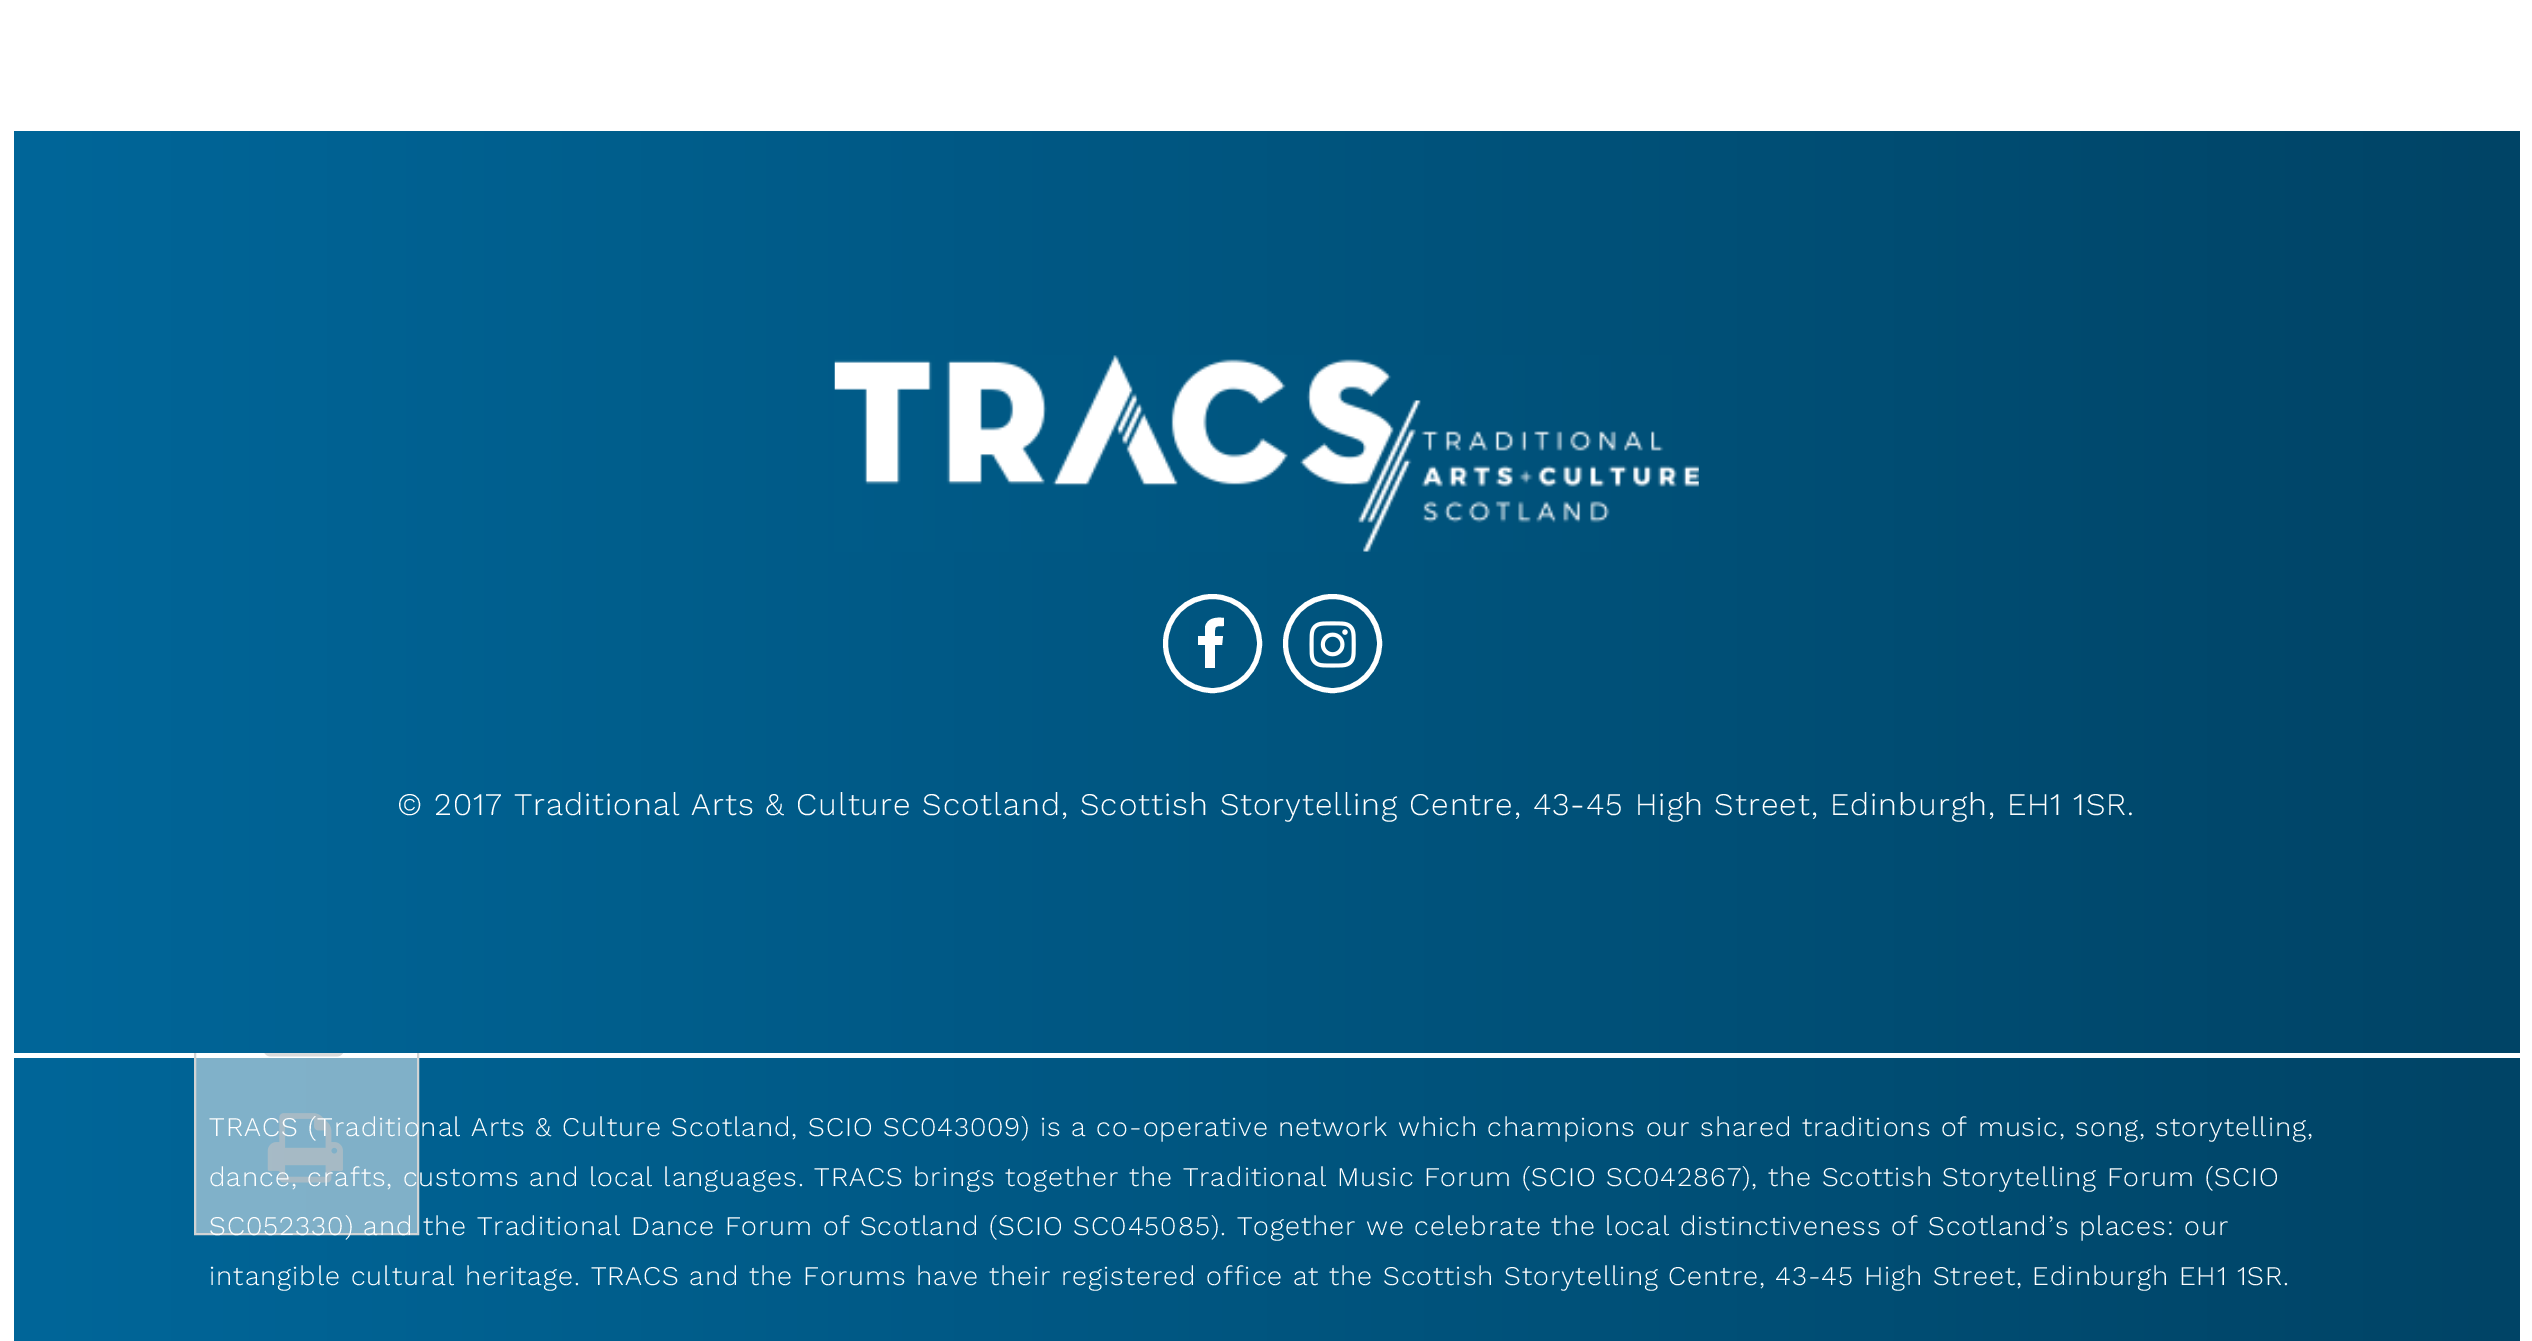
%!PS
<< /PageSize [2532 1341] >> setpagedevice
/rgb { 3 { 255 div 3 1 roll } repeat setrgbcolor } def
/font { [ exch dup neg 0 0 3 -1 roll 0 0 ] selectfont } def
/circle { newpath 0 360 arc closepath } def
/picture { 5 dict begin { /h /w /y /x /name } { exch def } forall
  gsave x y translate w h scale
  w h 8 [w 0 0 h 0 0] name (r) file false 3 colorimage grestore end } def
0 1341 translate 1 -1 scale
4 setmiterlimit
255 255 255 rgb
0 0 2532 1341 rectfill
gsave 14 1058 moveto 2520 1058 lineto 2520 1341 lineto 14 1341 lineto closepath clip newpath
<< /ShadingType 2 /ColorSpace /DeviceRGB /Coords [14 1292 2520 1292] /Extend [true true] /Function << /FunctionType 2 /Domain [0 1] /C0 [0 0.4 0.6] /C1 [0 0.267 0.4] /N 1 >> >> shfill grestore
gsave 196 1058 moveto 417 1058 lineto 417 1233 lineto 196 1233 lineto closepath clip newpath
<< /ShadingType 2 /ColorSpace /DeviceRGB /Coords [14 1292 2520 1292] /Extend [true true] /Function << /FunctionType 2 /Domain [0 1] /C0 [0.502 0.702 0.8] /C1 [0.502 0.635 0.702] /N 1 >> >> shfill grestore
209 211 212 rgb
2 setlinewidth
195 557 223 677 rectstroke
(img/1.rgb) 264 1053 80 4 picture
(img/2.rgb) 267 1113 76 70 picture
gsave 14 131 moveto 2520 131 lineto 2520 1053 lineto 14 1053 lineto closepath clip newpath
<< /ShadingType 2 /ColorSpace /DeviceRGB /Coords [14 592 2520 592] /Extend [true true] /Function << /FunctionType 2 /Domain [0 1] /C0 [0 0.4 0.6] /C1 [0 0.267 0.4] /N 1 >> >> shfill grestore
(img/3.rgb) 834 355 865 197 picture
255 255 255 rgb
5 setlinewidth
1212.5 643.5 47 circle stroke
1224 618 moveto 1224 626 lineto 1214 626 1215 626 1215 636 curveto 1223 636 lineto 1222 645 lineto 1215 645 lineto 1215 668 lineto 1205 668 lineto 1205 645 lineto 1198 645 lineto 1198 636 lineto 1205 636 lineto 1205 627 lineto 1207 618 1216 617 1224 618 curveto closepath fill
1332.5 643.5 47 circle stroke
(img/4.rgb) 1309 621 47 47 picture
/WorkSans-Light 31.5 font
397 815 moveto 1.01 0 (© 2017 Traditional Arts & Culture Scotland, Scottish Storytelling Centre, 43-45 High Street, Edinburgh, EH1 1SR.) ashow
/WorkSans-Light 27 font
209 1136 moveto 1.01 0 (TRACS \(Traditional Arts & Culture Scotland, SCIO SC043009\) is a co-operative network which champions our shared traditions of music, song, storytelling,) ashow
209 1186 moveto 1.01 0 (dance, crafts, customs and local languages. TRACS brings together the Traditional Music Forum \(SCIO SC042867\), the Scottish Storytelling Forum \(SCIO) ashow
209 1235 moveto 1.01 0 (SC052330\) and the Traditional Dance Forum of Scotland \(SCIO SC045085\). Together we celebrate the local distinctiveness of Scotland’s places: our) ashow
209 1285 moveto 1.01 0 (intangible cultural heritage. TRACS and the Forums have their registered office at the Scottish Storytelling Centre, 43-45 High Street, Edinburgh EH1 1SR.) ashow
showpage
